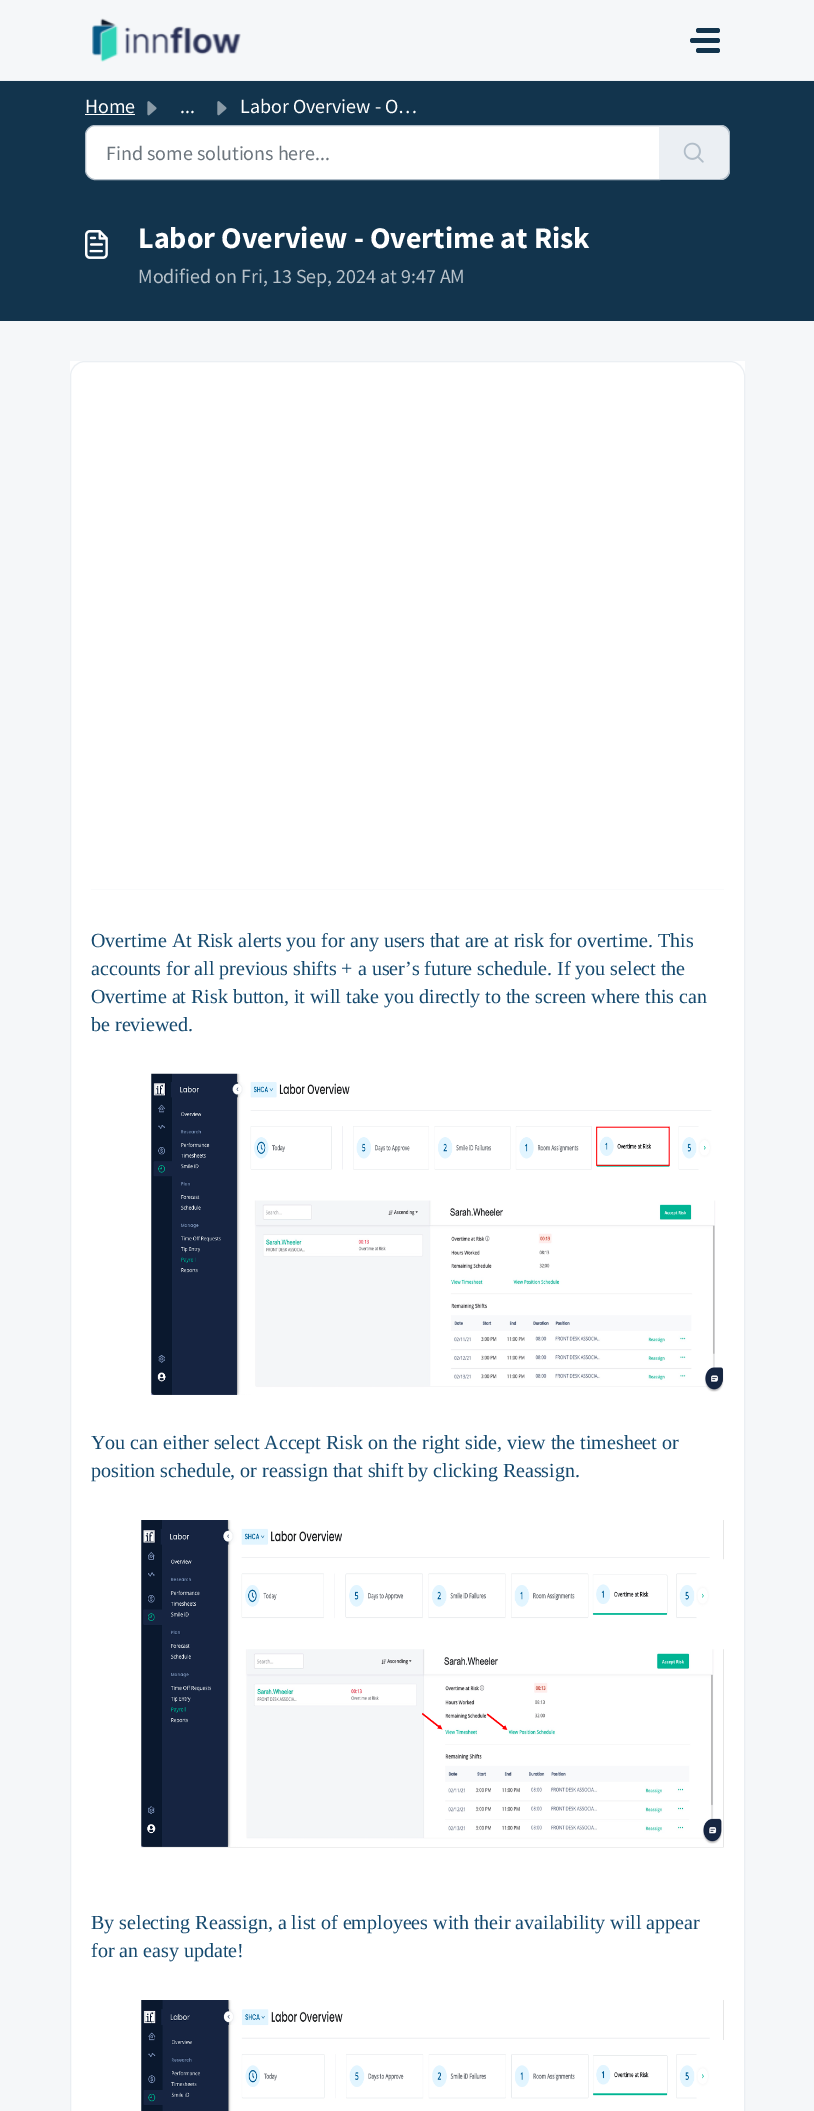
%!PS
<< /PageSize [814 2111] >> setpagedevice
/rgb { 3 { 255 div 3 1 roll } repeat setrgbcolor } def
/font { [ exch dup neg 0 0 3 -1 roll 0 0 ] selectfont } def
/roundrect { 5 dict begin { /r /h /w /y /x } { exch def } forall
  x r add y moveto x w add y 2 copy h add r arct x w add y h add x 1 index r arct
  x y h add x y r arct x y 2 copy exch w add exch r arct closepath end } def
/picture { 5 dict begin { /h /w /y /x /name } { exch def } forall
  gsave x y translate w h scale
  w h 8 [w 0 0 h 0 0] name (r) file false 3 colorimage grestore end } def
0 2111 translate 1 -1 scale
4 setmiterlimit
245 247 249 rgb
0 0 814 2111 rectfill
235 239 243 rgb
0 80 814 1 rectfill
(img/1.rgb) 92 18 149 44 picture
18 52 77 rgb
696 28 24 5 2.5 roundrect fill
690 38 30 5 2.5 roundrect fill
696 48 24 5 2.5 roundrect fill
0 81 814 240 rectfill
255 255 255 rgb
85 114 50 1 rectfill
(img/2.rgb) 147 101 10 15 picture
(img/3.rgb) 217 101 10 15 picture
95 125.5 moveto 659.5 125.5 lineto 659.5 179.5 lineto 95 179.5 lineto 90 179.5 85.5 175 85.5 170 curveto 85.5 135 lineto 85.5 130 90 125.5 95 125.5 curveto closepath gsave fill grestore
177 189 200 rgb
stroke
235 239 243 rgb
659 125 moveto 720 125 lineto 725.5 125 730 129.5 730 135 curveto 730 170 lineto 730 175.5 725.5 180 720 180 curveto 659 180 lineto closepath fill
177 189 200 rgb
659 125 moveto 720 125 lineto 726 125 730 129 730 135 curveto 730 170 lineto 730 176 726 180 720 180 curveto 659 180 lineto closepath 659 126 moveto 720 126 lineto 725 126 729 130 729 135 curveto 729 170 lineto 729 175 725 179 720 179 curveto 659 179 lineto closepath eofill
(img/4.rgb) 683 142 21 21 picture
(img/5.rgb) 85 230 23 29 picture
255 255 255 rgb
70 361 675 1750 rectfill
235 239 243 rgb
70.5 361.5 674 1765 14.5 roundrect stroke
250 251 252 rgb
91 889 633 1 rectfill
(img/6.rgb) 151 1073 573 322 picture
(img/7.rgb) 141 1520 583 328 picture
(img/8.rgb) 141 2000 583 111 picture
/SourceSansPro-Regular 20 font
255 255 255 rgb
[
  [(Home) 85 113]
  [(...) 180 113]
  [(Labor Overview - O…) 240 113]
] { aload pop moveto show } forall
108 117 125 rgb
106 160 moveto (Find some solutions here...) show
/SourceSansPro-Bold 30 font
255 255 255 rgb
138 248 moveto (Labor Overview - Overtime at Risk) show
/SourceSansPro-Regular 20 font
184 194 202 rgb
138 283 moveto (Modified on Fri, 13 Sep, 2024 at 9:47 AM) show
/LiberationSerif-Regular 20 font
22 74 111 rgb
[
  [(Overtime At Risk alerts you for any users that are at risk for overtime. This) 91 947]
  [(accounts for all previous shifts + a user’s future schedule. If you select the) 91 975]
  [(Overtime at Risk button, it will take you directly to the screen where this can) 91 1003]
  [(be reviewed.) 91 1031]
  [(You can either select Accept Risk on the right side, view the timesheet or) 91 1449]
  [(position schedule, or reassign that shift by clicking Reassign.) 91 1477]
  [(By selecting Reassign, a list of employees with their availability will appear) 91 1929]
  [(for an easy update!) 91 1957]
] { aload pop moveto show } forall
showpage
